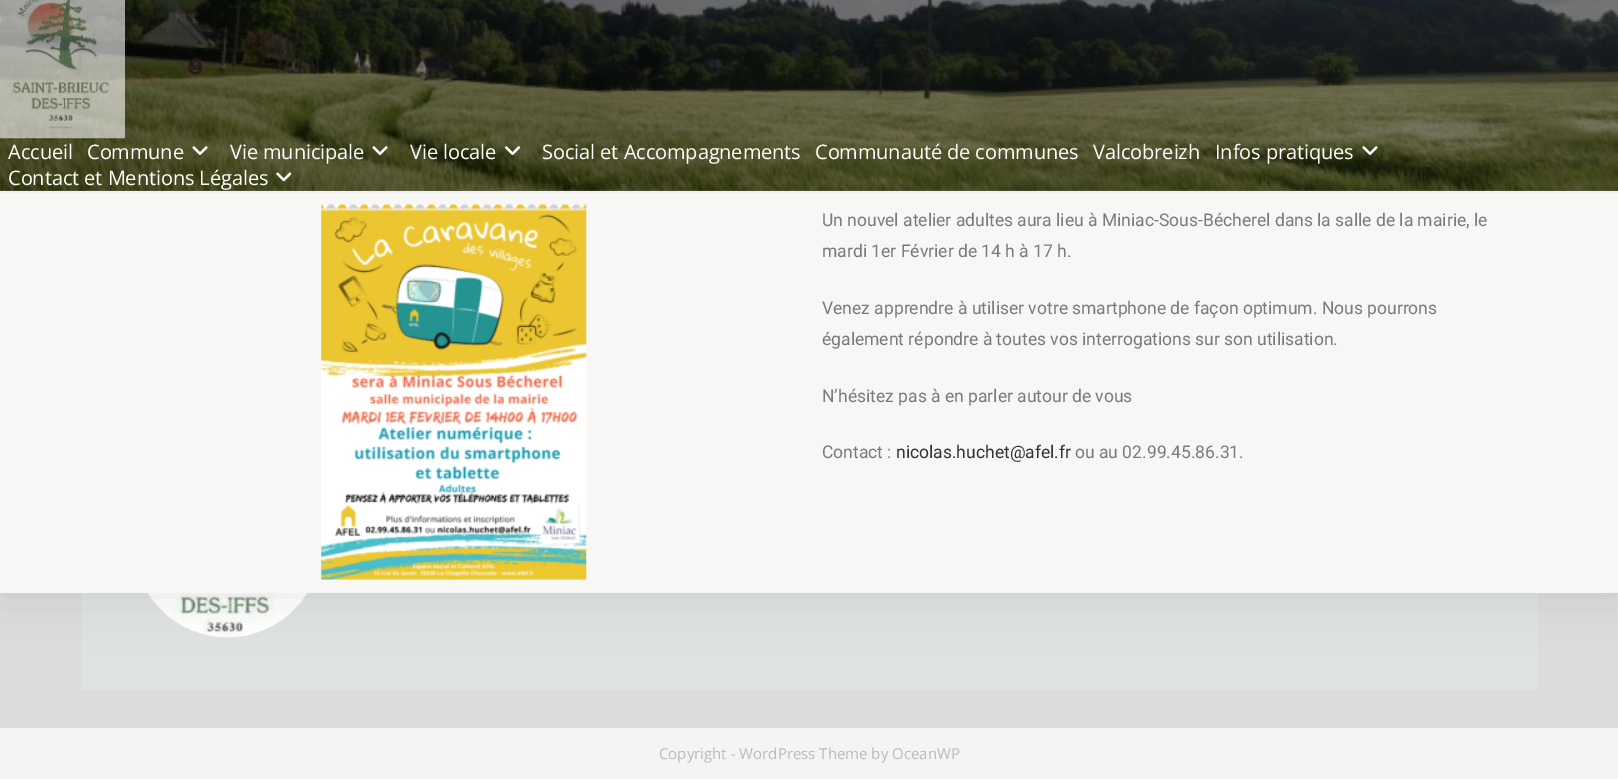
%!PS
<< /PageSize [1618 779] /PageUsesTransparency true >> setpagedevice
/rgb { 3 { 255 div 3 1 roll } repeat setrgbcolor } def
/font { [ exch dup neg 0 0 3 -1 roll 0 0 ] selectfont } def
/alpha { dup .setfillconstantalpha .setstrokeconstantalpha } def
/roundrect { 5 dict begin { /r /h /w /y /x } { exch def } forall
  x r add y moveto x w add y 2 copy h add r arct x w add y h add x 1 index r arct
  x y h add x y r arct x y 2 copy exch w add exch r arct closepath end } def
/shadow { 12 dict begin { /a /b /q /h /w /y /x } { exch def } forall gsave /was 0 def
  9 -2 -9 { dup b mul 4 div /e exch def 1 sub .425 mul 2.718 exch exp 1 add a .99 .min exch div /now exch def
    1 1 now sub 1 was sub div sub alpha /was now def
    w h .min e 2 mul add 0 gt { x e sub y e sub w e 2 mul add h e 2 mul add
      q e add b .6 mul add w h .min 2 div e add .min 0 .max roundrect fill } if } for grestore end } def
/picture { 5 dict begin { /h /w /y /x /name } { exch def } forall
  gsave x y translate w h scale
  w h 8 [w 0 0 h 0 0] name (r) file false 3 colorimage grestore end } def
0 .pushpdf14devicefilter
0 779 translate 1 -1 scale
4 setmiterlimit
220 220 220 rgb
0 0 1618 779 rectfill
222 226 224 rgb
81 593 1457 97 rectfill
(img/9.rgb) 147 593 161 45 picture
0 0 0 rgb
0 193 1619 400 0 25 0.1 shadow
239 239 239 rgb
0 190 1618 3 rectfill
(img/1.rgb) 0 0 1618 191 picture
0.5 alpha
0 0 0 rgb
0 0 1618 191 rectfill
1 alpha
(img/2.rgb) 0 0 125 139 picture
(img/3.rgb) 192 146 16 9 picture
(img/4.rgb) 372 146 16 9 picture
(img/5.rgb) 505 146 15 9 picture
(img/6.rgb) 1362 146 16 9 picture
(img/7.rgb) 276 172 16 10 picture
249 246 246 rgb
0 193 1618 400 rectfill
(img/8.rgb) 321 204 266 376 picture
244 244 244 rgb
0 728 1618 51 rectfill
/OpenSans-Regular 20 font
255 255 255 rgb
8 159 moveto -0.1 0 (Accueil) ashow
87 159 moveto -0.1 0 (Commune) ashow
230 159 moveto -0.1 0 (Vie municipale) ashow
410 159 moveto -0.1 0 (Vie locale) ashow
542 159 moveto -0.1 0 (Social et Accompagnements) ashow
815 159 moveto -0.1 0 (Communauté de communes) ashow
1093 159 moveto -0.1 0 (Valcobreizh) ashow
1215 159 moveto -0.1 0 (Infos pratiques) ashow
8 185 moveto -0.1 0 (Contact et Mentions Légales) ashow
/Roboto-Regular 17.5 font
122 122 122 rgb
[
  [(Un nouvel atelier adultes aura lieu à Miniac-Sous-Bécherel dans la salle de la mairie, le) 822 226]
  [(mardi 1er Février de 14 h à 17 h.) 822 257]
  [(Venez apprendre à utiliser votre smartphone de façon optimum. Nous pourrons) 822 314]
  [(également répondre à toutes vos interrogations sur son utilisation.) 822 345]
  [(N’hésitez pas à en parler autour de vous) 822 402]
  [(Contact :) 822 458]
] { aload pop moveto show } forall
51 51 51 rgb
896 458 moveto (nicolas.huchet@afel.fr) show
122 122 122 rgb
1075 458 moveto (ou au 02.99.45.86.31.) show
/OpenSans-Regular 15 font
186 186 186 rgb
659 759 moveto (Copyright - WordPress Theme by OceanWP) show
.poppdf14devicefilter showpage
